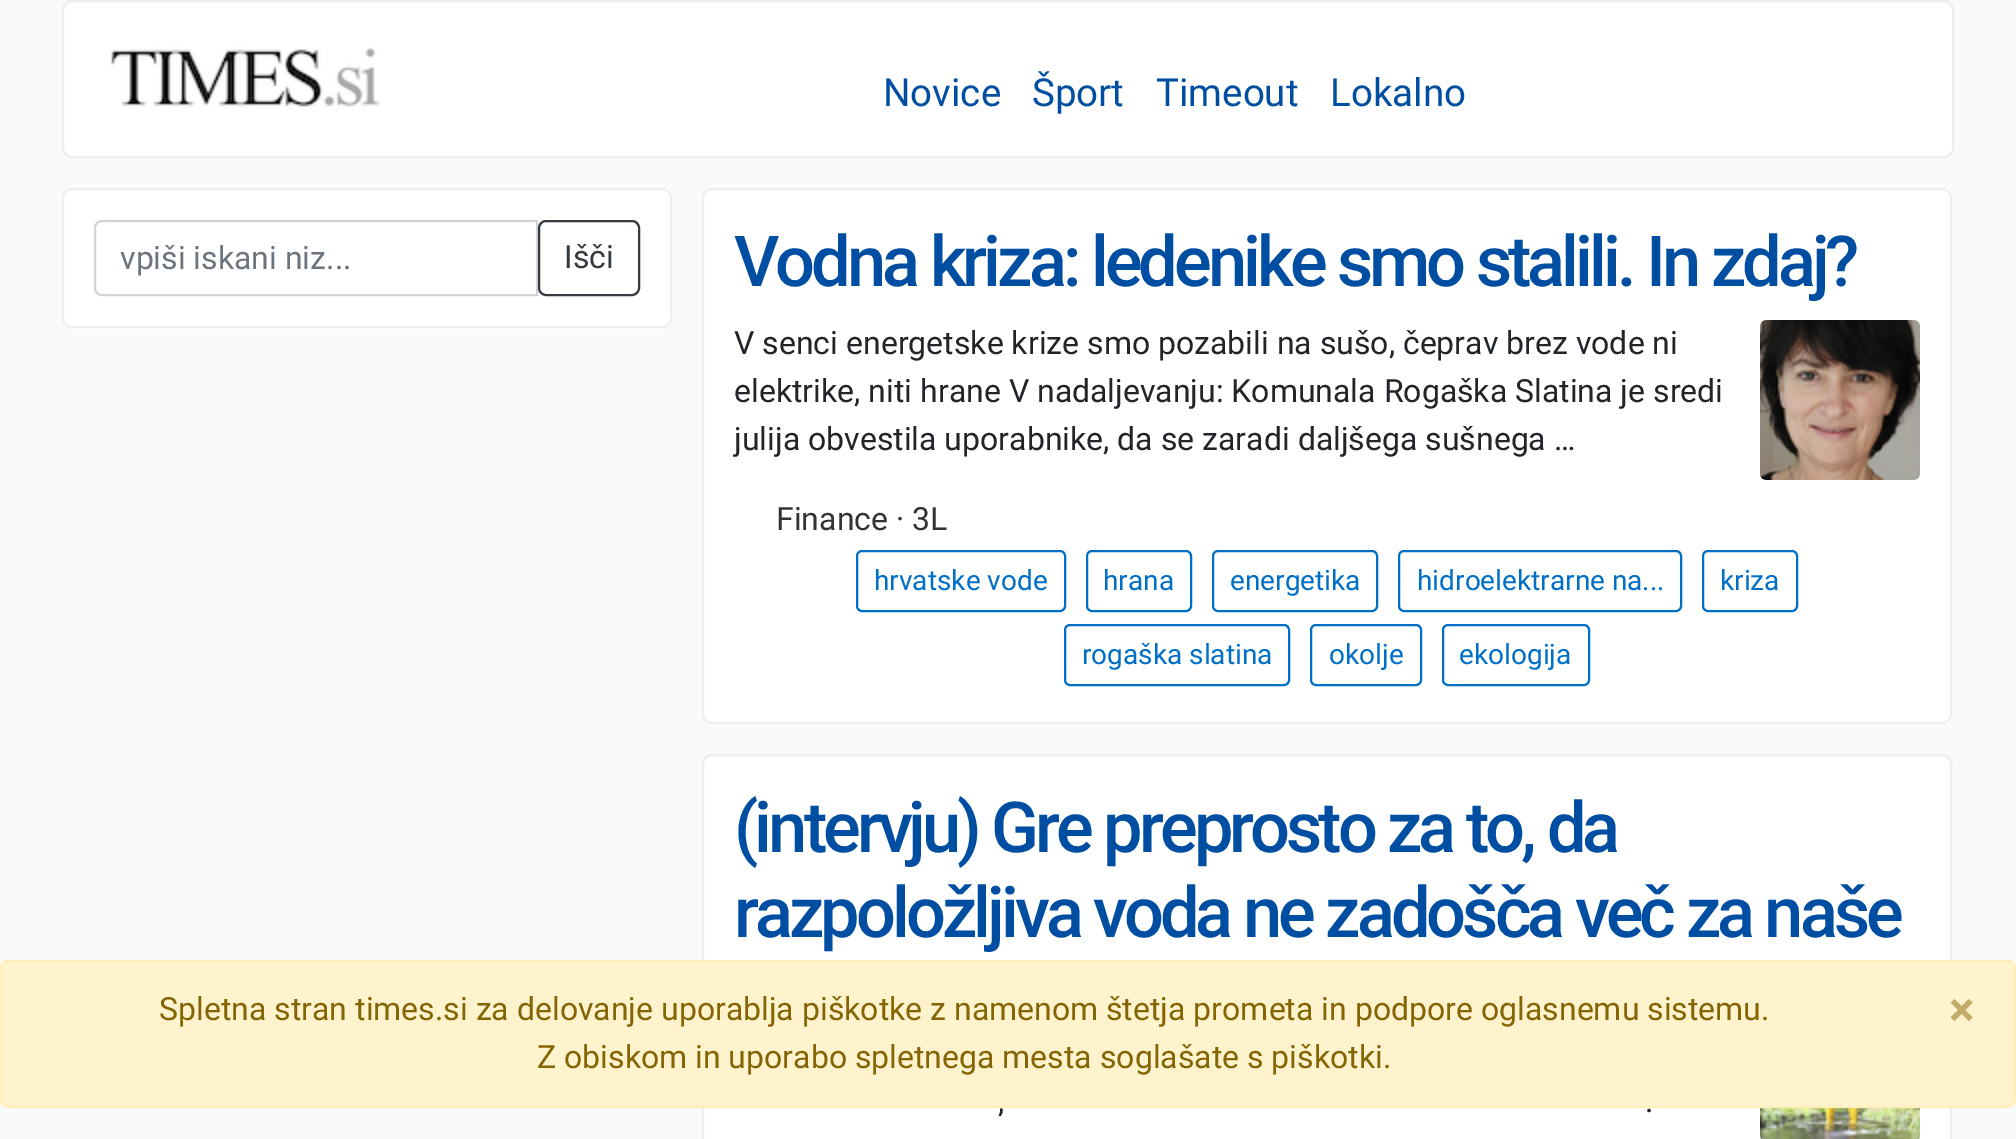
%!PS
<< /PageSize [2016 1139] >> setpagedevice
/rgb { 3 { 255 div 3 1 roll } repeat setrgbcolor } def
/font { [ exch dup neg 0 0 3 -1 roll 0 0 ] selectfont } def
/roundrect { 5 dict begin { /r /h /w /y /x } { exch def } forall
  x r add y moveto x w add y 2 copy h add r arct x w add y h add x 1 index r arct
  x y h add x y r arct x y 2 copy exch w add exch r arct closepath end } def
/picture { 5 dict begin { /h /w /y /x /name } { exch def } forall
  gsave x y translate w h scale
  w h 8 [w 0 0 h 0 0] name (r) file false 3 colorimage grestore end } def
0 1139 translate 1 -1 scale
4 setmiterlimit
250 250 250 rgb
0 0 2016 1139 rectfill
255 255 255 rgb
63 1 1890 156 9 roundrect gsave fill grestore
238 238 238 rgb
2 setlinewidth
stroke
(img/1.rgb) 110 47 271 60 picture
255 255 255 rgb
63 189 608 138 9 roundrect gsave fill grestore
238 238 238 rgb
stroke
206 212 218 rgb
102 221 moveto 537 221 lineto 537 295 lineto 102 295 lineto 98 295 95 292 95 288 curveto 95 228 lineto 95 224 98 221 102 221 curveto closepath stroke
52 58 64 rgb
539 221 100 74 7 roundrect stroke
255 255 255 rgb
703 189 1248 534 9 roundrect gsave fill grestore
238 238 238 rgb
stroke
(img/2.rgb) 1760 320 160 160 picture
0 112 199 rgb
857 551 208 60 5 roundrect stroke
1087 551 104 60 5 roundrect stroke
1213 551 164 60 5 roundrect stroke
1399 551 282 60 5 roundrect stroke
1703 551 94 60 5 roundrect stroke
1065 625 224 60 5 roundrect stroke
1311 625 110 60 5 roundrect stroke
1443 625 146 60 5 roundrect stroke
255 255 255 rgb
703 755 1248 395 9 roundrect gsave fill grestore
238 238 238 rgb
stroke
(img/3.rgb) 1760 1108 160 31 picture
255 243 205 rgb
1 961 2014 146 7 roundrect gsave fill grestore
255 238 186 rgb
stroke
/Roboto-Regular 38.5 font
0 78 162 rgb
[
  [(Novice) 883 106]
  [(Šport) 1032 106]
  [(Timeout) 1156 106]
  [(Lokalno) 1330 106]
] { aload pop moveto show } forall
/Roboto-Regular 32 font
108 117 125 rgb
120 269 moveto (vpiši iskani niz...) show
52 58 64 rgb
564 268 moveto (Išči) show
/Roboto-Medium 70.4 font
0 78 162 rgb
734 286 moveto -4 0 (Vodna kriza: ledenike smo stalili. In zdaj?) ashow
/Roboto-Regular 32 font
33 37 41 rgb
[
  [(V senci energetske krize smo pozabili na sušo, čeprav brez vode ni) 734 354]
  [(elektrike, niti hrane V nadaljevanju: Komunala Rogaška Slatina je sredi) 734 402]
  [(julija obvestila uporabnike, da se zaradi daljšega sušnega …) 734 450]
] { aload pop moveto show } forall
51 51 51 rgb
776 530 moveto (Finance · 3L) show
/Roboto-Regular 28 font
0 112 199 rgb
[
  [(hrvatske vode) 874 590]
  [(hrana) 1103 590]
  [(energetika) 1230 590]
  [(hidroelektrarne na...) 1417 590]
  [(kriza) 1720 590]
  [(rogaška slatina) 1082 664]
  [(okolje) 1329 664]
  [(ekologija) 1459 664]
] { aload pop moveto show } forall
/Roboto-Medium 70.4 font
0 78 162 rgb
734 852 moveto -4 0 (\(intervju\) Gre preprosto za to, da) ashow
734 937 moveto -4 0 (razpoložljiva voda ne zadošča več za naše) ashow
/Roboto-Regular 32 font
33 37 41 rgb
998 1112 moveto (,) show
1645 1112 moveto (.) show
133 100 4 rgb
159 1020 moveto (Spletna stran times.si za delovanje uporablja piškotke z namenom štetja prometa in podpore oglasnemu sistemu.) show
537 1068 moveto (Z obiskom in uporabo spletnega mesta soglašate s piškotki.) show
/Roboto-Bold 48 font
194 172 105 rgb
1949 1026 moveto (×) show
showpage
